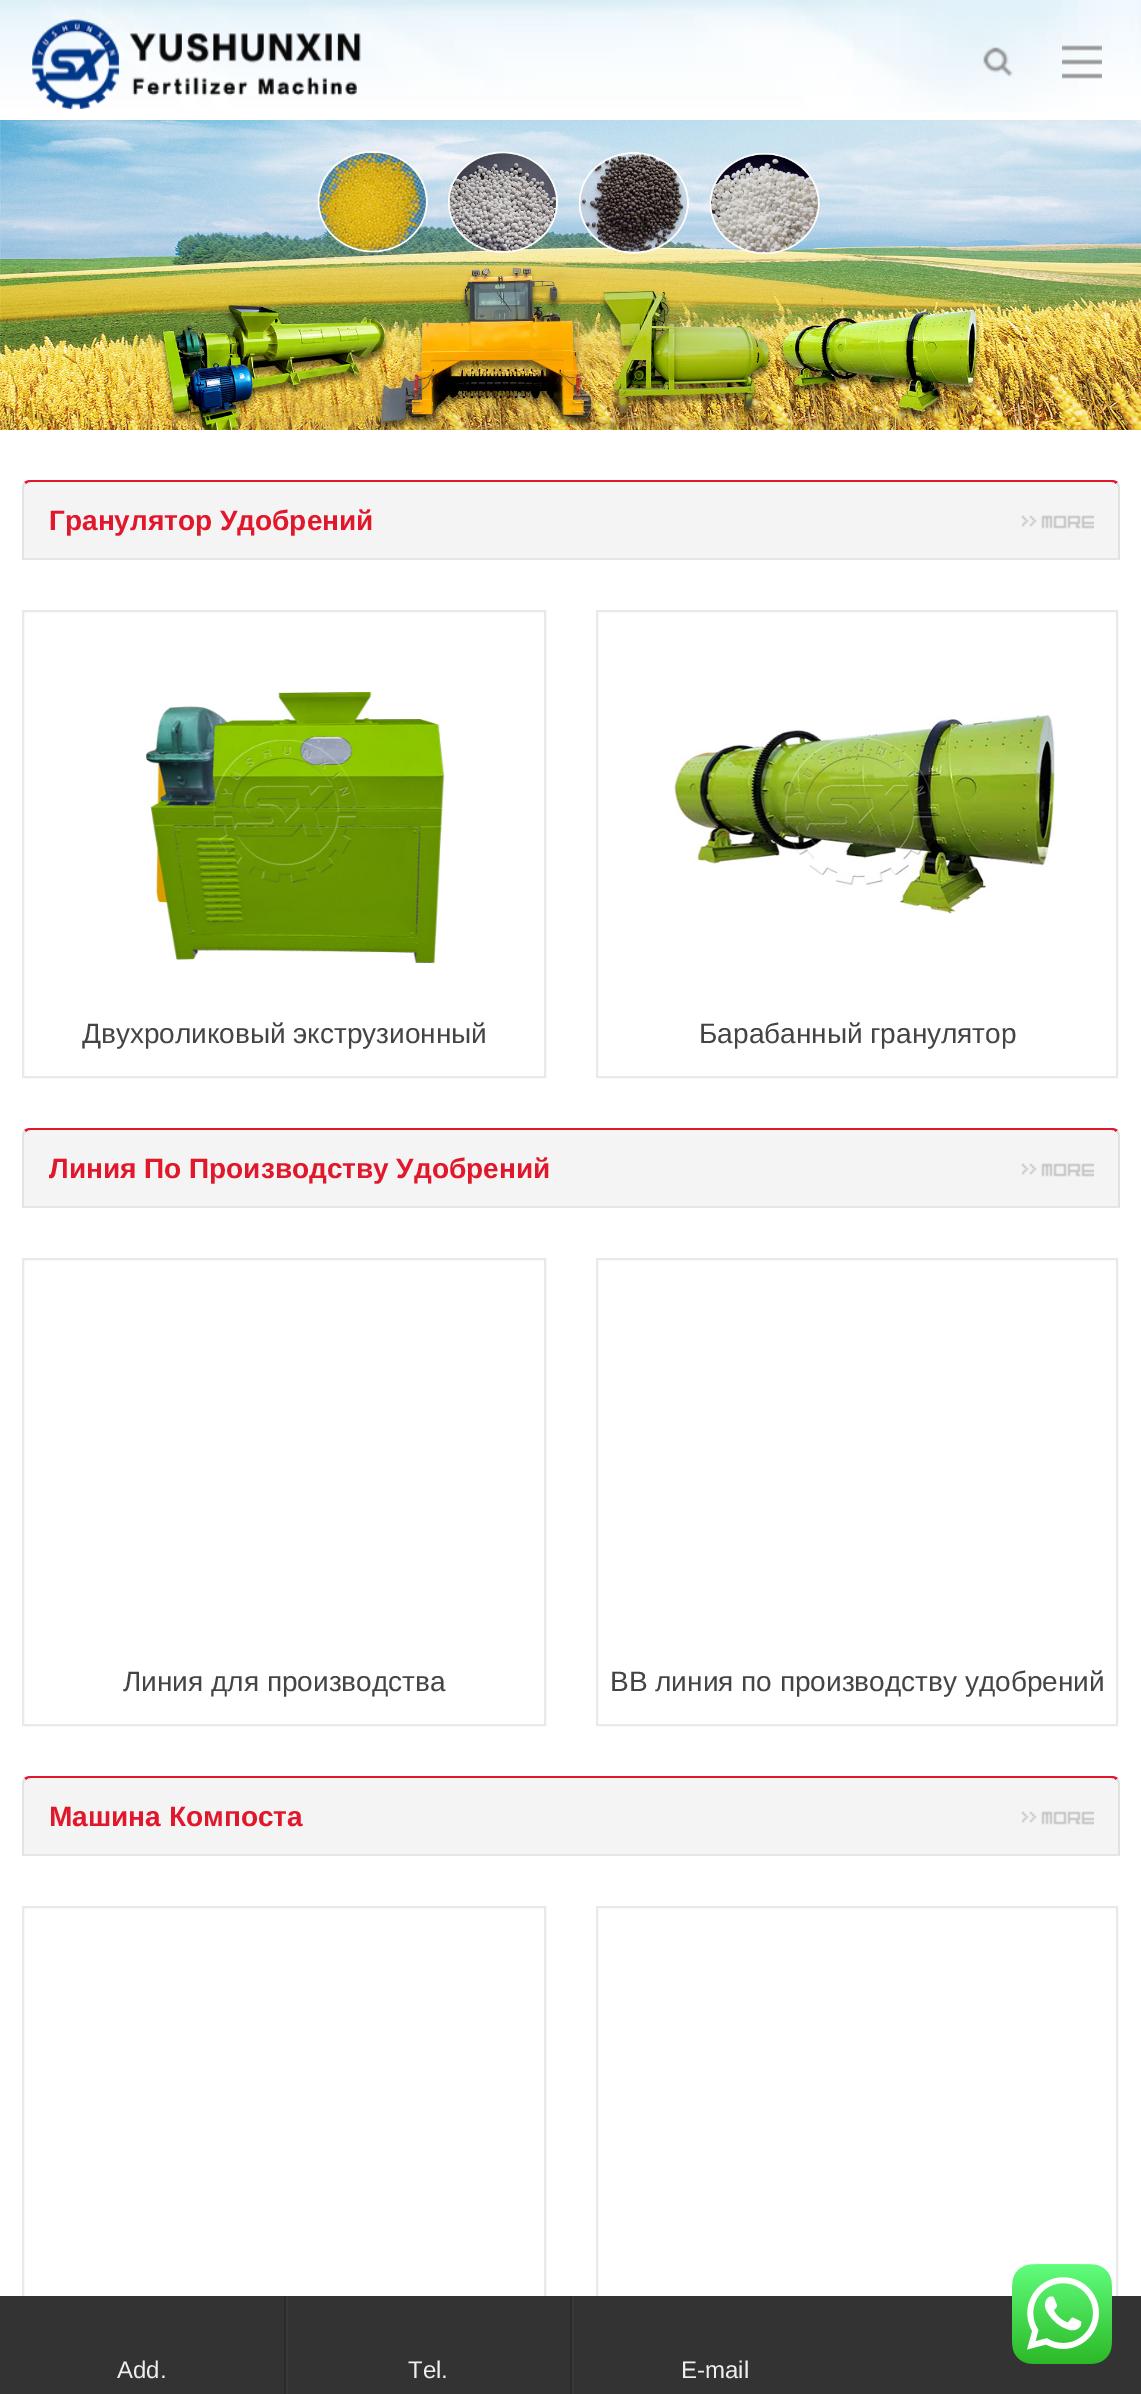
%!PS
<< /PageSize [1141 2394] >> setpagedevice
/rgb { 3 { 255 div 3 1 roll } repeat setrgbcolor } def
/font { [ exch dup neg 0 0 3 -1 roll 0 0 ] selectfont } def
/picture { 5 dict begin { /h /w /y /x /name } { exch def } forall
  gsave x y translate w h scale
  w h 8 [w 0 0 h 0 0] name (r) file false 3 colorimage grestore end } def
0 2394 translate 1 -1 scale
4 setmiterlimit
255 255 255 rgb
0 0 1141 2394 rectfill
(img/1.rgb) 0 0 1141 112 picture
(img/2.rgb) 32 19 329 91 picture
(img/3.rgb) 983 47 30 29 picture
(img/4.rgb) 1062 45 40 34 picture
(img/5.rgb) 0 120 1141 310 picture
244 244 244 rgb
30 480 moveto 1112 480 lineto 1116.5 480 1120 483.5 1120 488 curveto 1120 560 lineto 22 560 lineto 22 488 lineto 22 483.5 25.5 480 30 480 curveto closepath fill
225 24 43 rgb
30 480 moveto 28 480 26 481 24 482 curveto 26 484 lineto 27 483 28 482 30 482 curveto 1112 482 lineto 1114 482 1115 483 1116 484 curveto 1118 482 lineto 1116 481 1114 480 1112 480 curveto closepath fill
226 226 226 rgb
1120 560 moveto 1120 488 lineto 1120 486 1119 484 1118 482 curveto 1116 484 lineto 1118 487 lineto 1118 558 lineto closepath fill
230 230 230 rgb
1120 560 moveto 1118 558 lineto 24 558 lineto 22 560 lineto closepath fill
226 226 226 rgb
22 560 moveto 24 558 lineto 24 487 lineto 26 484 lineto 24 482 lineto 23 484 22 486 22 488 curveto closepath fill
(img/6.rgb) 1022 515 72 14 picture
233 233 233 rgb
2 setlinewidth
23 611 522 466 rectstroke
(img/7.rgb) 146 692 299 271 picture
597 611 520 466 rectstroke
(img/8.rgb) 674 713 381 201 picture
244 244 244 rgb
30 1128 moveto 1112 1128 lineto 1116.5 1128 1120 1131.5 1120 1136 curveto 1120 1208 lineto 22 1208 lineto 22 1136 lineto 22 1131.5 25.5 1128 30 1128 curveto closepath fill
225 24 43 rgb
30 1128 moveto 28 1128 26 1129 24 1130 curveto 26 1132 lineto 27 1131 28 1130 30 1130 curveto 1112 1130 lineto 1114 1130 1115 1131 1116 1132 curveto 1118 1130 lineto 1116 1129 1114 1128 1112 1128 curveto closepath fill
226 226 226 rgb
1120 1208 moveto 1120 1136 lineto 1120 1134 1119 1132 1118 1130 curveto 1116 1132 lineto 1118 1135 lineto 1118 1206 lineto closepath fill
230 230 230 rgb
1120 1208 moveto 1118 1206 lineto 24 1206 lineto 22 1208 lineto closepath fill
226 226 226 rgb
22 1208 moveto 24 1206 lineto 24 1135 lineto 26 1132 lineto 24 1130 lineto 23 1132 22 1134 22 1136 curveto closepath fill
(img/6.rgb) 1022 1163 72 14 picture
233 233 233 rgb
23 1259 522 466 rectstroke
597 1259 520 466 rectstroke
244 244 244 rgb
30 1776 moveto 1112 1776 lineto 1116.5 1776 1120 1779.5 1120 1784 curveto 1120 1856 lineto 22 1856 lineto 22 1784 lineto 22 1779.5 25.5 1776 30 1776 curveto closepath fill
225 24 43 rgb
30 1776 moveto 28 1776 26 1777 24 1778 curveto 26 1780 lineto 27 1779 28 1778 30 1778 curveto 1112 1778 lineto 1114 1778 1115 1779 1116 1780 curveto 1118 1778 lineto 1116 1777 1114 1776 1112 1776 curveto closepath fill
226 226 226 rgb
1120 1856 moveto 1120 1784 lineto 1120 1782 1119 1780 1118 1778 curveto 1116 1780 lineto 1118 1783 lineto 1118 1854 lineto closepath fill
230 230 230 rgb
1120 1856 moveto 1118 1854 lineto 24 1854 lineto 22 1856 lineto closepath fill
226 226 226 rgb
22 1856 moveto 24 1854 lineto 24 1783 lineto 26 1780 lineto 24 1778 lineto 23 1780 22 1782 22 1784 curveto closepath fill
(img/6.rgb) 1022 1811 72 14 picture
233 233 233 rgb
23 1907 522 466 rectstroke
597 1907 520 466 rectstroke
51 51 51 rgb
0 2296 1141 98 rectfill
(img/9.rgb) 1012 2264 100 100 picture
[
  [284 2296 2 98 43 43 43]
  [570 2296 2 98 43 43 43]
  [286 2296 2 98 56 56 56]
  [572 2296 2 98 56 56 56]
] { aload pop rgb rectfill } forall
/LiberationSans-Bold 28 font
225 24 43 rgb
49 530 moveto (Гранулятор Удобрений) show
/LiberationSans-Regular 28 font
68 68 68 rgb
82 1043 moveto (Двухроликовый экструзионный) show
699 1043 moveto (Барабанный гранулятор) show
/LiberationSans-Bold 28 font
225 24 43 rgb
49 1178 moveto (Линия По Производству Удобрений) show
/LiberationSans-Regular 28 font
68 68 68 rgb
123 1691 moveto (Линия для производства) show
610 1691 moveto (BB линия по производству удобрений) show
/LiberationSans-Bold 28 font
225 24 43 rgb
49 1826 moveto (Машина Компоста) show
/LiberationSans-Regular 24 font
238 238 238 rgb
[
  [(Add.) 117 2378]
  [(Tel.) 408 2378]
  [(E-mail) 681 2378]
] { aload pop moveto show } forall
showpage
